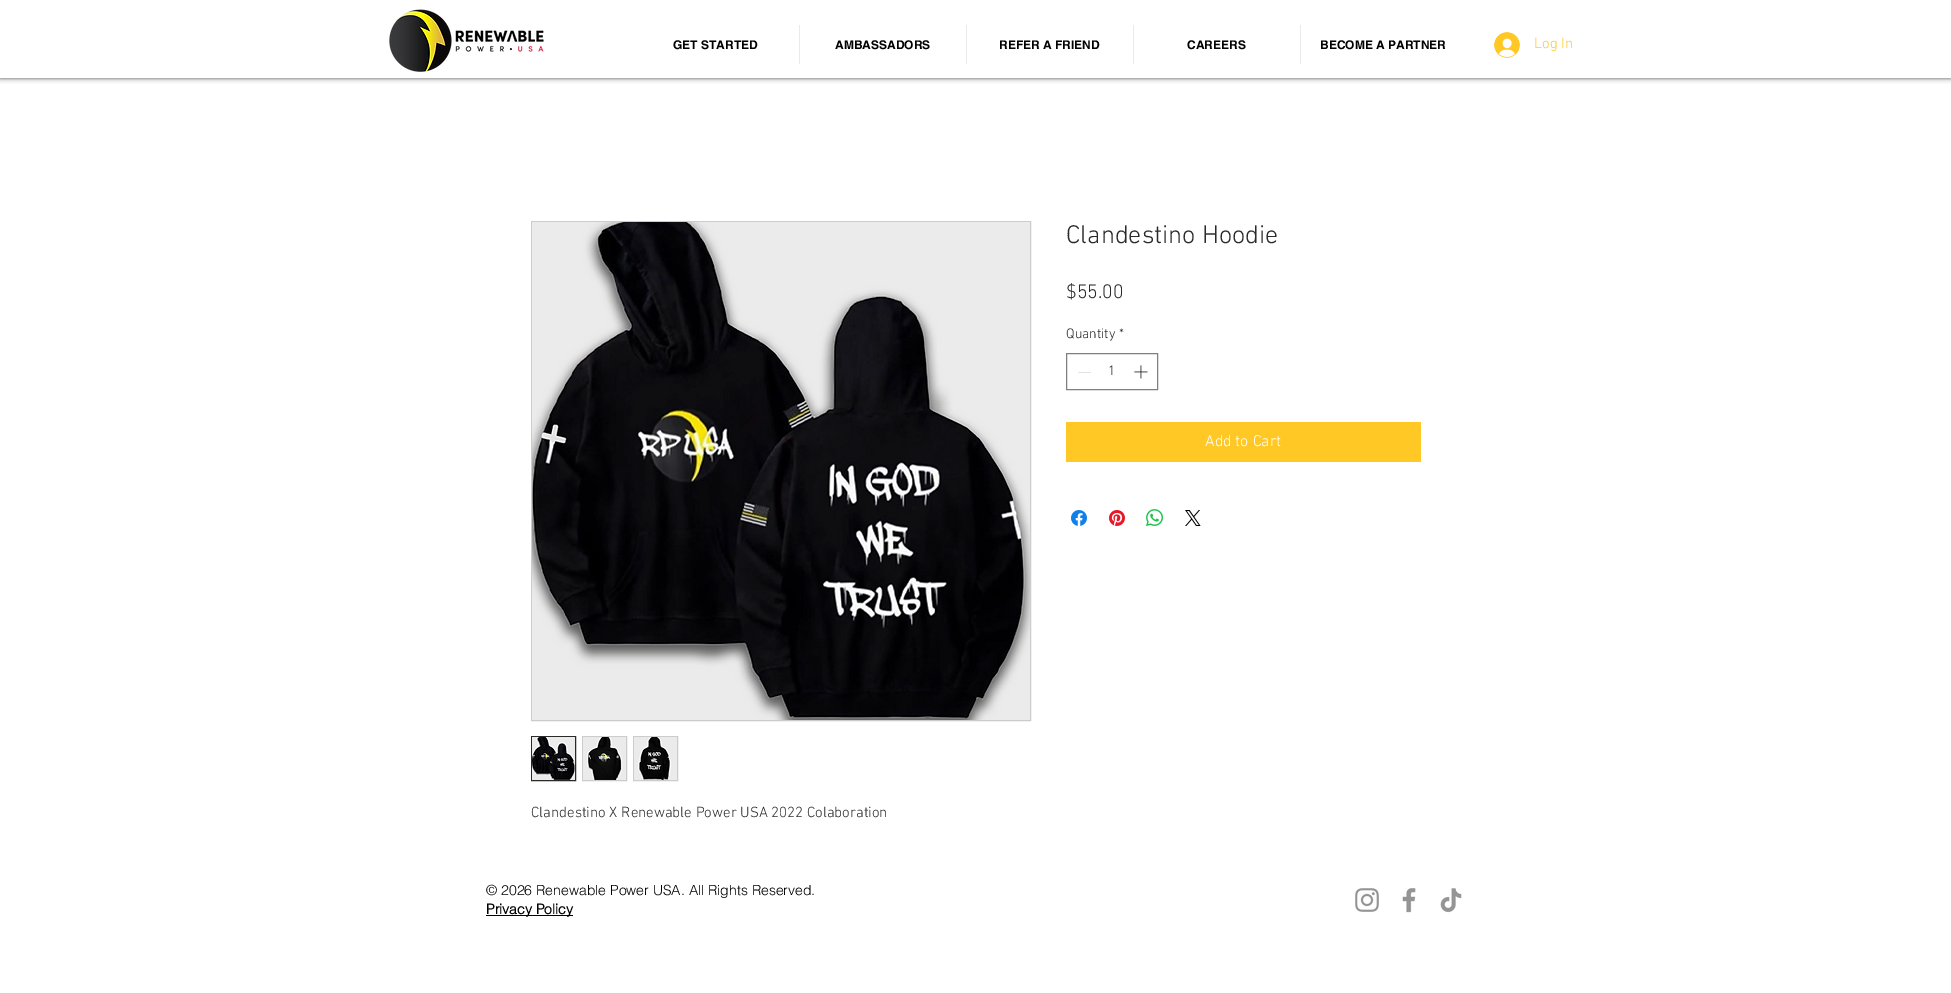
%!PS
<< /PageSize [1951 993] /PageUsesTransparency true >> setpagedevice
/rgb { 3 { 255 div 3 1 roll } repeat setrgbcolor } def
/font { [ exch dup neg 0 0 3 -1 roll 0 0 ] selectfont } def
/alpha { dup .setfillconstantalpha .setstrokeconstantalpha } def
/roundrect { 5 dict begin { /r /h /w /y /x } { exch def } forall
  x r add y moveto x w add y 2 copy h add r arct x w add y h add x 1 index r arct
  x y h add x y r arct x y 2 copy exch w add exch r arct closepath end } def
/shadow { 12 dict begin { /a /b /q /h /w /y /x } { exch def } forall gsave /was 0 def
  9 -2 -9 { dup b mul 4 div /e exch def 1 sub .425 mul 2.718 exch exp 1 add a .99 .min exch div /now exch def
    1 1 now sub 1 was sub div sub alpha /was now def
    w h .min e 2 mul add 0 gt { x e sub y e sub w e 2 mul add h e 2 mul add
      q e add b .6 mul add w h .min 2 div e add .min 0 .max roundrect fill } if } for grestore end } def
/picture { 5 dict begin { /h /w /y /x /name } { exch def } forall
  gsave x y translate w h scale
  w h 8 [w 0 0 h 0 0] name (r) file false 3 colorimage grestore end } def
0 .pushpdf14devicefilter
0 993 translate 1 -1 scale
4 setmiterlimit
255 255 255 rgb
0 0 1951 993 rectfill
0 0 0 rgb
0 0 1951 78 0 2.5 0.7 shadow
255 255 255 rgb
0 0 1951 78 rectfill
(img/1.rgb) 389 9 155 63 picture
[
  [799 25 1 39 234 234 234]
  [966 25 1 39 234 234 234]
  [1133 25 1 39 234 234 234]
  [1300 25 1 39 234 234 234]
] { aload pop rgb rectfill } forall
(img/2.rgb) 1494 32 26 26 picture
127 127 127 rgb
1066.5 353.5 91 36 rectstroke
227 227 227 rgb
1078 372 13 1 rectfill
(img/3.rgb) 1134 365 14 14 picture
255 200 36 rgb
1066 422 355 40 rectfill
(img/4.rgb) 1071 510 16 16 picture
(img/5.rgb) 1109 510 16 16 picture
(img/6.rgb) 1146 509 17 17 picture
(img/7.rgb) 1185 510 16 16 picture
204 204 204 rgb
531.5 221.5 499 499 rectstroke
(img/8.rgb) 532 222 498 498 picture
42 42 42 rgb
531.5 736.5 44 44 rectstroke
(img/9.rgb) 532 737 43 43 picture
204 204 204 rgb
582.5 736.5 44 44 rectstroke
(img/10.rgb) 583 737 43 43 picture
633.5 736.5 44 44 rectstroke
(img/11.rgb) 634 737 43 43 picture
0 0 0 rgb
486 915 87 1 rectfill
(img/12.rgb) 1355 888 24 24 picture
(img/13.rgb) 1402 888 14 25 picture
(img/14.rgb) 1440 888 22 25 picture
/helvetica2-Bold 12 font
[
  [(GET STARTED) 673 49]
  [(AMBASSADORS) 835 49]
  [(REFER A FRIEND) 999 49]
  [(CAREERS) 1187 49]
  [(BECOME A PARTNER) 1320 49]
] { aload pop moveto show } forall
/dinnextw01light-Light 15 font
255 200 36 rgb
1534 48 moveto (Log In) show
/dinnextw01light-Light 26 font
42 42 42 rgb
1066 243 moveto (Clandestino Hoodie) show
/dinnextw01light-Light 20 font
1066 298 moveto ($55.00) show
/dinnextw01light-Light 14 font
[
  [(Quantity) 1066 338]
  [(*) 1119 338]
  [(1) 1108 375]
] { aload pop moveto show } forall
/dinnextw01light-Light 16 font
255 255 255 rgb
1205 446 moveto (Add to Cart) show
/dinnextw01light-Light 15 font
42 42 42 rgb
531 817 moveto (Clandestino X Renewable Power USA 2022 Colaboration) show
/helvetica-Light 14 font
0 0 0 rgb
486 895 moveto (© 2026 Renewable Power USA. All Rights Reserved.) show
/helvetica-Bold 14 font
486 914 moveto (Privacy Policy) show
.poppdf14devicefilter showpage
